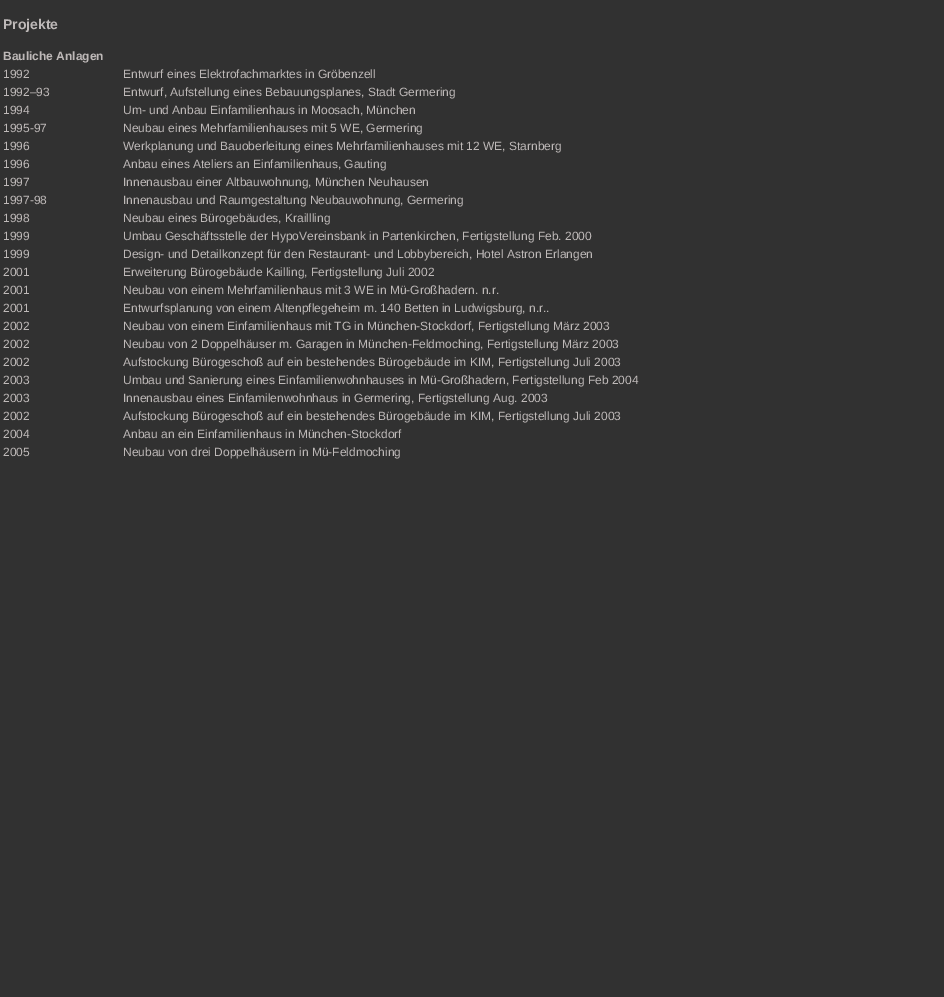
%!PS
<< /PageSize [944 997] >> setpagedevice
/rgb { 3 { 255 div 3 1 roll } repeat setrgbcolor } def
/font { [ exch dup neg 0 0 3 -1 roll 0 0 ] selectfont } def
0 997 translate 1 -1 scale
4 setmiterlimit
49 49 49 rgb
0 0 944 997 rectfill
/LiberationSans-Bold 14 font
190 185 184 rgb
3 29 moveto (Projekte) show
/LiberationSans-Bold 12 font
3 60 moveto (Bauliche Anlagen) show
/LiberationSans-Regular 12 font
[
  [(1992) 3 78]
  [(Entwurf eines Elektrofachmarktes in Gröbenzell) 123 78]
  [(1992–93) 3 96]
  [(Entwurf, Aufstellung eines Bebauungsplanes, Stadt Germering) 123 96]
  [(1994) 3 114]
  [(Um- und Anbau Einfamilienhaus in Moosach, München) 123 114]
  [(1995-97) 3 132]
  [(Neubau eines Mehrfamilienhauses mit 5 WE, Germering) 123 132]
  [(1996) 3 150]
  [(Werkplanung und Bauoberleitung eines Mehrfamilienhauses mit 12 WE, Starnberg) 123 150]
  [(1996) 3 168]
  [(Anbau eines Ateliers an Einfamilienhaus, Gauting) 123 168]
  [(1997) 3 186]
  [(Innenausbau einer Altbauwohnung, München Neuhausen) 123 186]
  [(1997-98) 3 204]
  [(Innenausbau und Raumgestaltung Neubauwohnung, Germering) 123 204]
  [(1998) 3 222]
  [(Neubau eines Bürogebäudes, Kraillling) 123 222]
  [(1999) 3 240]
  [(Umbau Geschäftsstelle der HypoVereinsbank in Partenkirchen, Fertigstellung Feb. 2000) 123 240]
  [(1999) 3 258]
  [(Design- und Detailkonzept für den Restaurant- und Lobbybereich, Hotel Astron Erlangen) 123 258]
  [(2001) 3 276]
  [(Erweiterung Bürogebäude Kailling, Fertigstellung Juli 2002) 123 276]
  [(2001) 3 294]
  [(Neubau von einem Mehrfamilienhaus mit 3 WE in Mü-Großhadern. n.r.) 123 294]
  [(2001) 3 312]
  [(Entwurfsplanung von einem Altenpflegeheim m. 140 Betten in Ludwigsburg, n.r..) 123 312]
  [(2002) 3 330]
  [(Neubau von einem Einfamilienhaus mit TG in München-Stockdorf, Fertigstellung März 2003) 123 330]
  [(2002) 3 348]
  [(Neubau von 2 Doppelhäuser m. Garagen in München-Feldmoching, Fertigstellung März 2003) 123 348]
  [(2002) 3 366]
  [(Aufstockung Bürogeschoß auf ein bestehendes Bürogebäude im KIM, Fertigstellung Juli 2003) 123 366]
  [(2003) 3 384]
  [(Umbau und Sanierung eines Einfamilienwohnhauses in Mü-Großhadern, Fertigstellung Feb 2004) 123 384]
  [(2003) 3 402]
  [(Innenausbau eines Einfamilenwohnhaus in Germering, Fertigstellung Aug. 2003) 123 402]
  [(2002) 3 420]
  [(Aufstockung Bürogeschoß auf ein bestehendes Bürogebäude im KIM, Fertigstellung Juli 2003) 123 420]
  [(2004) 3 438]
  [(Anbau an ein Einfamilienhaus in München-Stockdorf) 123 438]
  [(2005) 3 456]
  [(Neubau von drei Doppelhäusern in Mü-Feldmoching) 123 456]
] { aload pop moveto show } forall
showpage
